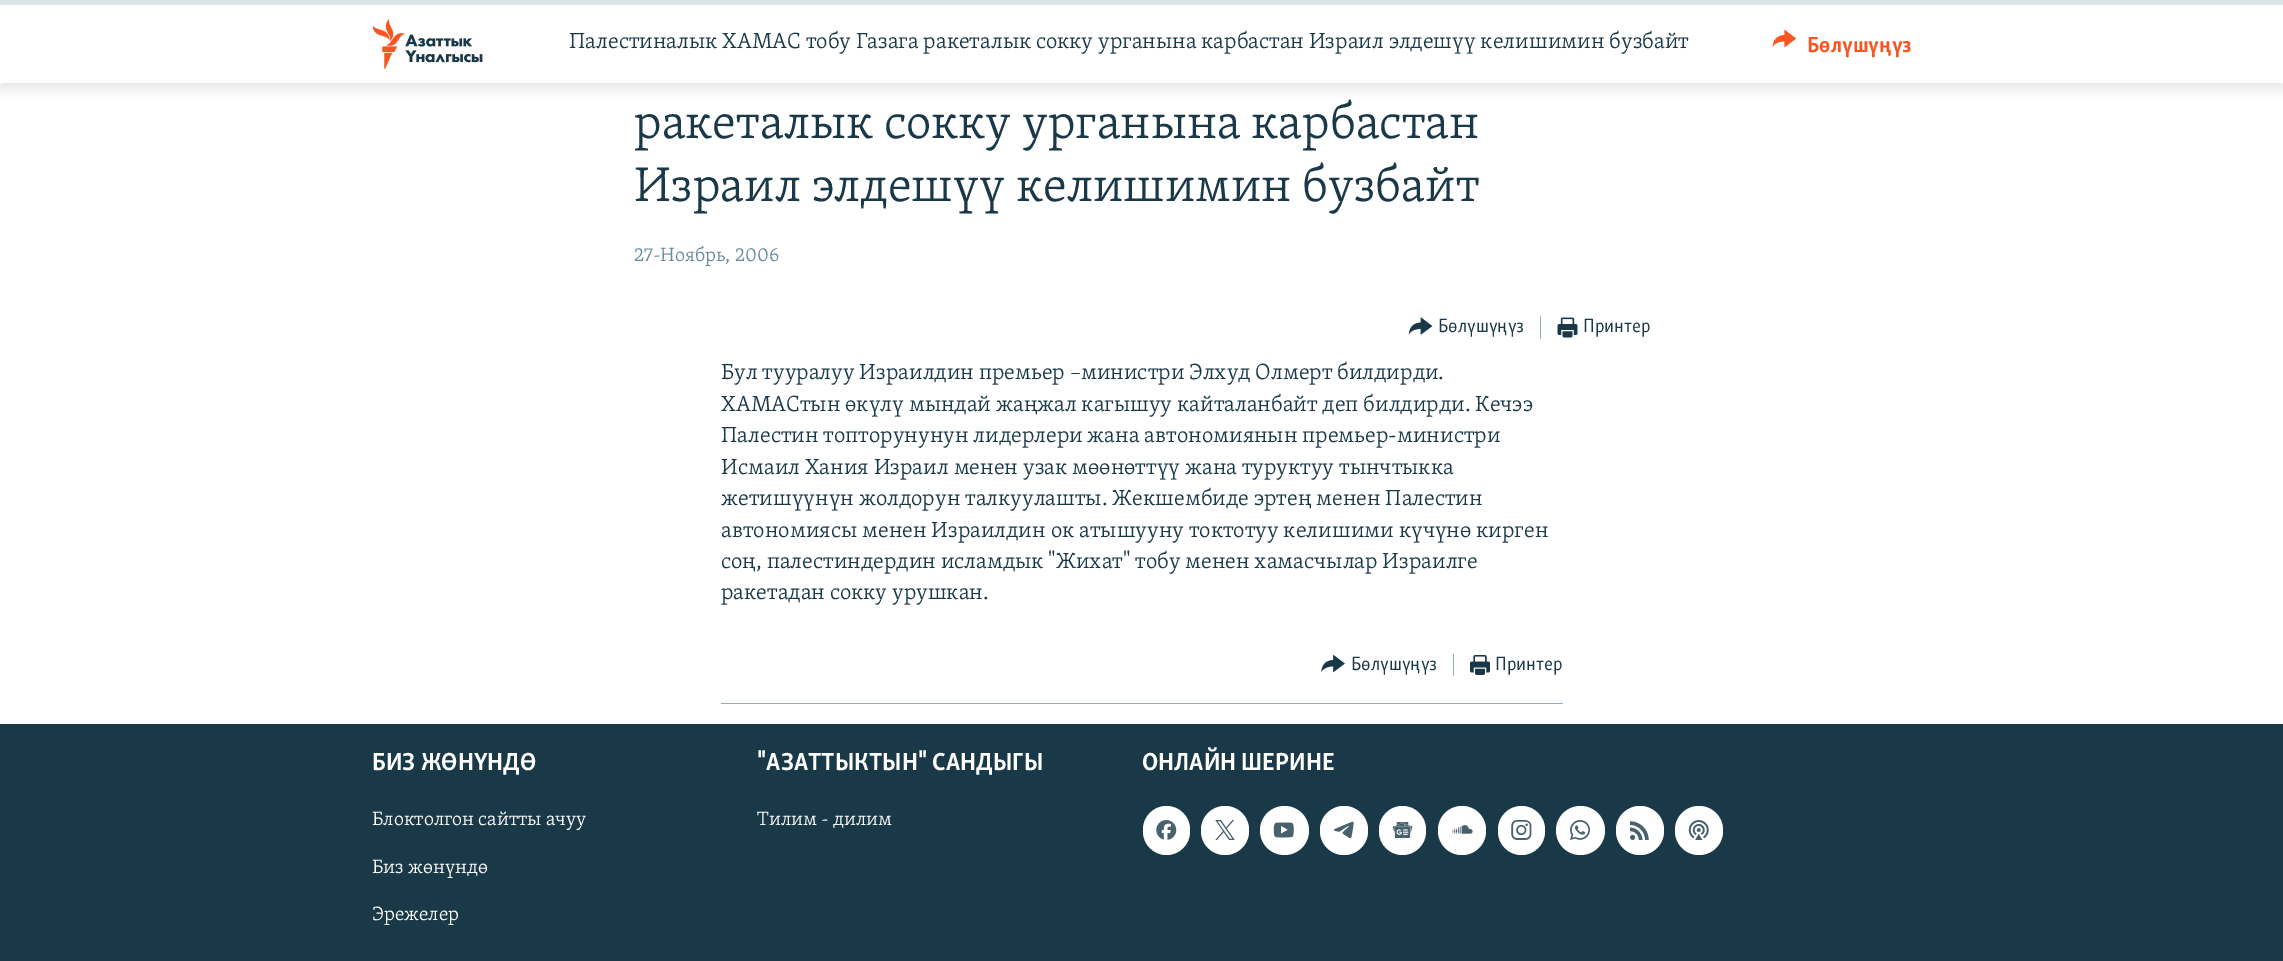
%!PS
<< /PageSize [2283 961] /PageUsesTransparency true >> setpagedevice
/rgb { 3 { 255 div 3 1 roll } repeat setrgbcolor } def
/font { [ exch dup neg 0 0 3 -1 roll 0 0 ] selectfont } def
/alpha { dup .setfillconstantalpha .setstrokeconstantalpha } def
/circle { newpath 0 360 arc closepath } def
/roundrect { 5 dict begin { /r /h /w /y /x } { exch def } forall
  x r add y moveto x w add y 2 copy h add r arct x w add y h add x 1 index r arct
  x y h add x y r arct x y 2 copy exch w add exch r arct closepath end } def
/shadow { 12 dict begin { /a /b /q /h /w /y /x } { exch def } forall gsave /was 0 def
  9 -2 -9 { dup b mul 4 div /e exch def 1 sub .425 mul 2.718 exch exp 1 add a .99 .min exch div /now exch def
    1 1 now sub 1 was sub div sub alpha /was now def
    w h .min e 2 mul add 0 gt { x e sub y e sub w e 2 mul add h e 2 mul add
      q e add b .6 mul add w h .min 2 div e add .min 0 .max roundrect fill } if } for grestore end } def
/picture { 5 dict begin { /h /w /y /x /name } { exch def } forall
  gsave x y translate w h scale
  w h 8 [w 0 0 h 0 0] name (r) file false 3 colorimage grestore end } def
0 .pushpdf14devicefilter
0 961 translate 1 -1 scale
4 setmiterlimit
255 255 255 rgb
0 0 2283 961 rectfill
0 0 0 rgb
0 6 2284 83 0 6 0.1 shadow
255 255 255 rgb
0 5 2283 78 rectfill
220 228 232 rgb
0 0 2283 5 rectfill
(img/1.rgb) 373 19 110 50 picture
(img/2.rgb) 1772 29 25 19 picture
(img/3.rgb) 1408 317 25 18 picture
149 173 185 rgb
1540 316 1 23 rectfill
(img/4.rgb) 1557 317 21 21 picture
721 703 842 1 rectfill
(img/5.rgb) 1321 654 24 19 picture
1453 654 1 22 rectfill
(img/6.rgb) 1470 655 20 20 picture
26 57 72 rgb
0 724 2283 237 rectfill
255 255 255 rgb
1143 806 47 49 23.5 roundrect fill
(img/7.rgb) 1156 820 21 20 picture
1201 806 48 49 24 roundrect fill
(img/8.rgb) 1215 820 20 20 picture
1284.5 830.5 24.5 circle fill
(img/9.rgb) 1273 822 21 16 picture
1320 806 48 49 24 roundrect fill
(img/10.rgb) 1333 821 21 18 picture
1379 806 47 49 23.5 roundrect fill
(img/11.rgb) 1392 822 21 16 picture
1438 806 48 49 24 roundrect fill
(img/12.rgb) 1452 825 21 9 picture
1498 806 47 49 23.5 roundrect fill
(img/13.rgb) 1511 820 21 20 picture
1580.5 830.5 24.5 circle fill
(img/14.rgb) 1570 820 20 20 picture
1616 806 48 49 24 roundrect fill
(img/15.rgb) 1630 821 19 19 picture
1675 806 48 49 24 roundrect fill
(img/16.rgb) 1688 820 21 20 picture
/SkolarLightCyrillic-Light 22.5 font
26 57 72 rgb
569 48 moveto (Палестиналык ХАМАС тобу Газага ракеталык сокку урганына карбастан Израил элдешүү келишимин бузбайт) show
/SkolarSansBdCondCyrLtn-Bold 22.5 font
250 84 32 rgb
1807 52 moveto (Бөлүшүңүз) show
/SkolarLightCyrillic-Light 50 font
26 57 72 rgb
634 138 moveto (ракеталык сокку урганына карбастан) show
634 201 moveto (Израил элдешүү келишимин бузбайт) show
/SkolarLightCyrillic-Light 19.75 font
103 138 155 rgb
634 261 moveto (27-Ноябрь, 2006) show
/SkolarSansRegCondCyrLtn-Regular 19.75 font
26 57 72 rgb
1438 332 moveto (Бөлүшүңүз) show
1583 332 moveto (Принтер) show
/SkolarLightCyrillic-Light 22.5 font
[
  [(Бул тууралуу Израилдин премьер –министри Элхуд Олмерт билдирди.) 721 379]
  [(ХАМАСтын өкүлү мындай жаңжал кагышуу кайталанбайт деп билдирди. Кечээ) 721 411]
  [(Палестин топторунунун лидерлери жана автономиянын премьер-министри) 721 442]
  [(Исмаил Хания Израил менен узак мөөнөттүү жана туруктуу тынчтыкка) 721 474]
  [(жетишүүнүн жолдорун талкуулашты. Жекшембиде эртең менен Палестин) 721 505]
  [(автономиясы менен Израилдин ок атышууну токтотуу келишими күчүнө кирген) 721 537]
  [(соң, палестиндердин исламдык "Жихат" тобу менен хамасчылар Израилге) 721 568]
  [(ракетадан сокку урушкан.) 721 599]
] { aload pop moveto show } forall
/SkolarSansRegCondCyrLtn-Regular 19.75 font
1351 670 moveto (Бөлүшүңүз) show
1495 670 moveto (Принтер) show
/SkolarSansBdCondCyrLtn-Bold 25.25 font
255 255 255 rgb
372 770 moveto (БИЗ ЖӨНҮНДӨ) show
/SkolarLightCyrillic-Light 19.75 font
[
  [(Блоктолгон сайтты ачуу) 372 825]
  [(Биз жөнүндө) 372 873]
  [(Эрежелер) 372 920]
] { aload pop moveto show } forall
/SkolarSansBdCondCyrLtn-Bold 25.25 font
757 770 moveto ("АЗАТТЫКТЫН" САНДЫГЫ) show
/SkolarLightCyrillic-Light 19.75 font
757 825 moveto (Тилим - дилим) show
/SkolarSansBdCondCyrLtn-Bold 25.25 font
1142 770 moveto (ОНЛАЙН ШЕРИНЕ) show
.poppdf14devicefilter showpage
